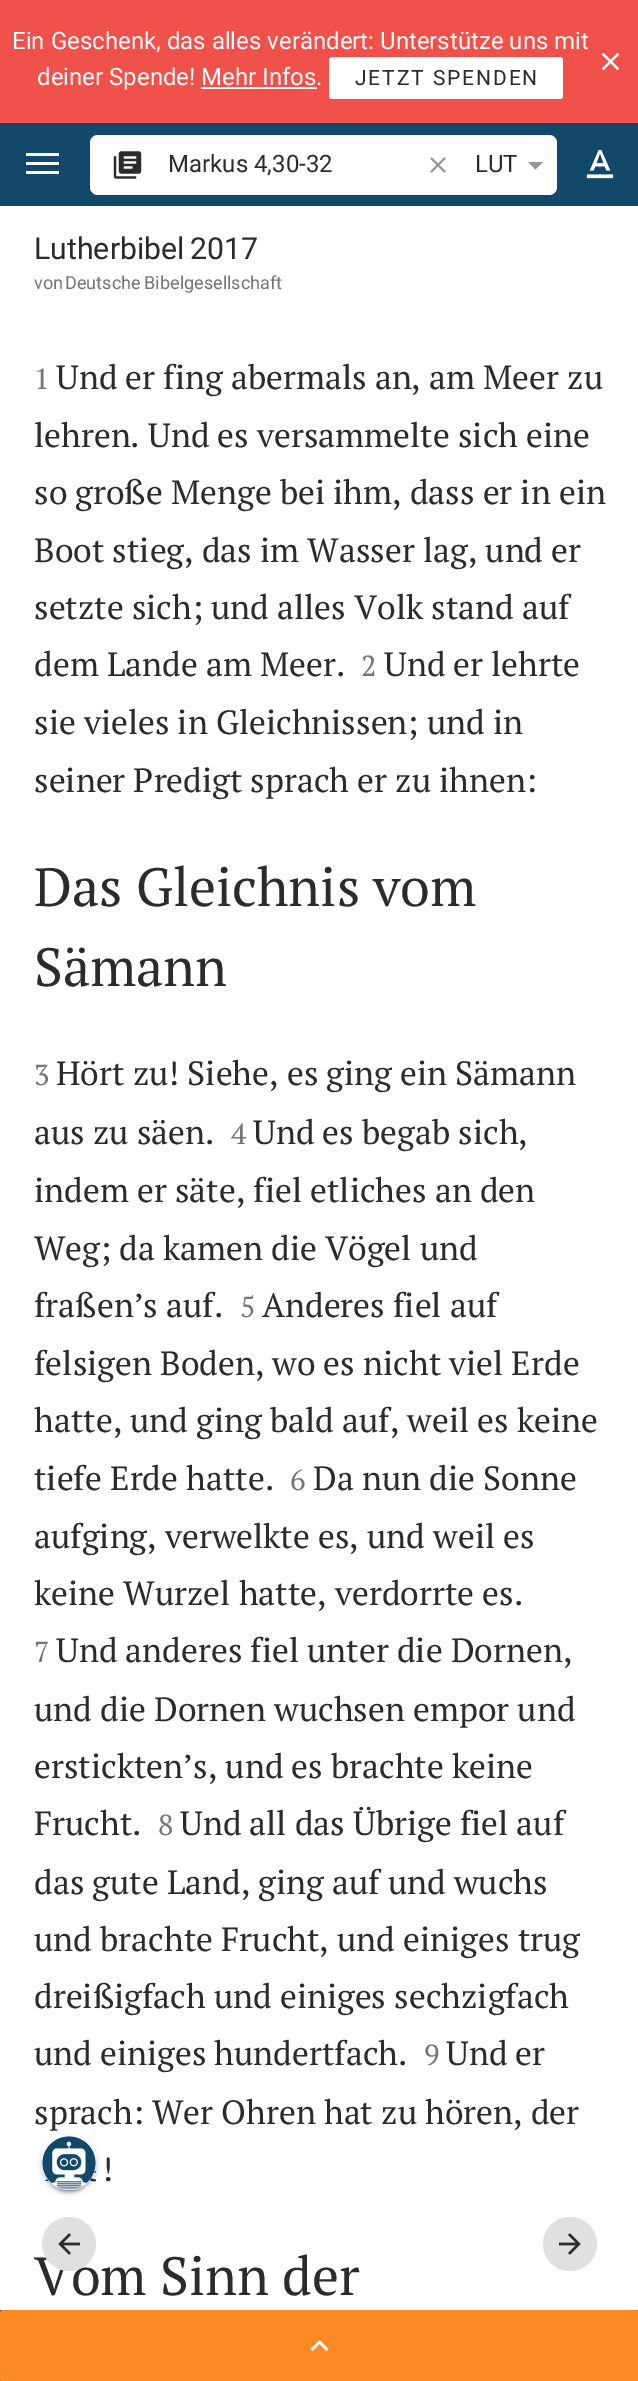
%!PS
<< /PageSize [638 2381] /PageUsesTransparency true >> setpagedevice
/rgb { 3 { 255 div 3 1 roll } repeat setrgbcolor } def
/font { [ exch dup neg 0 0 3 -1 roll 0 0 ] selectfont } def
/alpha { dup .setfillconstantalpha .setstrokeconstantalpha } def
/circle { newpath 0 360 arc closepath } def
/roundrect { 5 dict begin { /r /h /w /y /x } { exch def } forall
  x r add y moveto x w add y 2 copy h add r arct x w add y h add x 1 index r arct
  x y h add x y r arct x y 2 copy exch w add exch r arct closepath end } def
/shadow { 12 dict begin { /a /b /q /h /w /y /x } { exch def } forall gsave /was 0 def
  9 -2 -9 { dup b mul 4 div /e exch def 1 sub .425 mul 2.718 exch exp 1 add a .99 .min exch div /now exch def
    1 1 now sub 1 was sub div sub alpha /was now def
    w h .min e 2 mul add 0 gt { x e sub y e sub w e 2 mul add h e 2 mul add
      q e add b .6 mul add w h .min 2 div e add .min 0 .max roundrect fill } if } for grestore end } def
/picture { 5 dict begin { /h /w /y /x /name } { exch def } forall
  gsave x y translate w h scale
  w h 8 [w 0 0 h 0 0] name (r) file false 3 colorimage grestore end } def
0 .pushpdf14devicefilter
0 2381 translate 1 -1 scale
4 setmiterlimit
255 255 255 rgb
0 0 638 2381 rectfill
240 81 75 rgb
0 0 638 123 rectfill
255 255 255 rgb
329 57 234 42 3 roundrect fill
201 87 116 2 rectfill
(img/1.rgb) 601 52 19 19 picture
[
  [0 123 638 83 18 73 106]
  [26 153 33 3 255 255 255]
  [26 162 33 3 255 255 255]
  [26 171 33 3 255 255 255]
] { aload pop rgb rectfill } forall
90 135 467 60 8 roundrect fill
(img/2.rgb) 113 151 29 28 picture
(img/3.rgb) 430 157 16 16 picture
149 149 149 rgb
528 162 moveto 535.5 169.5 lineto 543 162 lineto closepath fill
(img/4.rgb) 586 150 28 29 picture
224 224 224 rgb
570 2244 27 circle fill
(img/6.rgb) 559 2233 22 22 picture
54 54 54 rgb
0 2310 638 71 rectfill
253 138 36 rgb
0 2310 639 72 3 roundrect fill
255 255 255 rgb
312.5 2351 moveto 319.5 2344 lineto 326.5 2351 lineto 328.5 2349 lineto 319.5 2340 lineto 310.5 2349 lineto closepath fill
0 0 0 rgb
42 2138 54 54 27 4 0.12 shadow
42 2139 54 54 27 1.5 0.14 shadow
45 2144 48 48 24 1 0.2 shadow
255 255 255 rgb
69 2163 27 circle fill
(img/7.rgb) 42 2136 54 54 picture
/Roboto-Regular 24 font
12 49 moveto (Ein Geschenk, das alles verändert: Unterstütze uns mit) show
37 85 moveto (deiner Spende! Mehr Infos.) show
/Roboto-Regular 21 font
43 43 43 rgb
355 85 moveto 1.9 0 (JETZT SPENDEN) ashow
/Roboto-Regular 24 font
168 172 moveto (Markus 4,30-32) show
475 172 moveto (LUT) show
/Roboto-Regular 30.25 font
34 259 moveto -2 0 32 (Lutherbibel 2017) widthshow
/Roboto-Regular 18.1 font
117 117 117 rgb
34 289 moveto (von) show
65 289 moveto -1 0 32 (Deutsche Bibelgesellschaft) widthshow
/PTSerif-Regular 29 font
34 389 moveto (1) show
/PTSerif-Regular 33.6 font
43 43 43 rgb
[
  [(Und er fing abermals an, am Meer zu) 56 389]
  [(lehren. Und es versammelte sich eine) 34 447]
  [(so große Menge bei ihm, dass er in ein) 34 504]
  [(Boot stieg, das im Wasser lag, und er) 34 562]
  [(setzte sich; und alles Volk stand auf) 34 619]
  [(dem Lande am Meer.) 34 676]
] { aload pop moveto show } forall
/PTSerif-Regular 29 font
117 117 117 rgb
361 676 moveto (2) show
/PTSerif-Regular 33.6 font
43 43 43 rgb
[
  [(Und er lehrte) 384 676]
  [(sie vieles in Gleichnissen; und in) 34 734]
  [(seiner Predigt sprach er zu ihnen:) 34 792]
] { aload pop moveto show } forall
/PTSerif-Regular 53.75 font
34 906 moveto (Das Gleichnis vom) show
34 986 moveto (Sämann) show
/PTSerif-Regular 29 font
117 117 117 rgb
34 1085 moveto (3) show
/PTSerif-Regular 33.6 font
43 43 43 rgb
56 1085 moveto (Hört zu! Siehe, es ging ein Sämann) show
34 1144 moveto (aus zu säen.) show
/PTSerif-Regular 29 font
117 117 117 rgb
231 1144 moveto (4) show
/PTSerif-Regular 33.6 font
43 43 43 rgb
[
  [(Und es begab sich,) 253 1144]
  [(indem er säte, fiel etliches an den) 34 1202]
  [(Weg; da kamen die Vögel und) 34 1260]
  [(fraßen’s auf.) 34 1317]
] { aload pop moveto show } forall
/PTSerif-Regular 29 font
117 117 117 rgb
240 1317 moveto (5) show
/PTSerif-Regular 33.6 font
43 43 43 rgb
[
  [(Anderes fiel auf) 262 1317]
  [(felsigen Boden, wo es nicht viel Erde) 34 1375]
  [(hatte, und ging bald auf, weil es keine) 34 1432]
  [(tiefe Erde hatte.) 34 1490]
] { aload pop moveto show } forall
/PTSerif-Regular 29 font
117 117 117 rgb
290 1490 moveto (6) show
/PTSerif-Regular 33.6 font
43 43 43 rgb
[
  [(Da nun die Sonne) 313 1490]
  [(aufging, verwelkte es, und weil es) 34 1548]
  [(keine Wurzel hatte, verdorrte es.) 34 1605]
] { aload pop moveto show } forall
/PTSerif-Regular 29 font
117 117 117 rgb
34 1662 moveto (7) show
/PTSerif-Regular 33.6 font
43 43 43 rgb
[
  [(Und anderes fiel unter die Dornen,) 56 1662]
  [(und die Dornen wuchsen empor und) 34 1721]
  [(erstickten’s, und es brachte keine) 34 1778]
  [(Frucht.) 34 1835]
] { aload pop moveto show } forall
/PTSerif-Regular 29 font
117 117 117 rgb
158 1835 moveto (8) show
/PTSerif-Regular 33.6 font
43 43 43 rgb
[
  [(Und all das Übrige fiel auf) 180 1835]
  [(das gute Land, ging auf und wuchs) 34 1894]
  [(und brachte Frucht, und einiges trug) 34 1951]
  [(dreißigfach und einiges sechzigfach) 34 2008]
  [(und einiges hundertfach.) 34 2065]
] { aload pop moveto show } forall
/PTSerif-Regular 29 font
117 117 117 rgb
424 2065 moveto (9) show
/PTSerif-Regular 33.6 font
43 43 43 rgb
[
  [(Und er) 446 2065]
  [(sprach: Wer Ohren hat zu hören, der) 34 2124]
  [(!) 102 2181]
] { aload pop moveto show } forall
/PTSerif-Regular 53.75 font
34 2295 moveto (Vom Sinn der) show
224 224 224 rgb
69 2244 27 circle fill
(img/5.rgb) 58 2233 22 22 picture
.poppdf14devicefilter showpage
